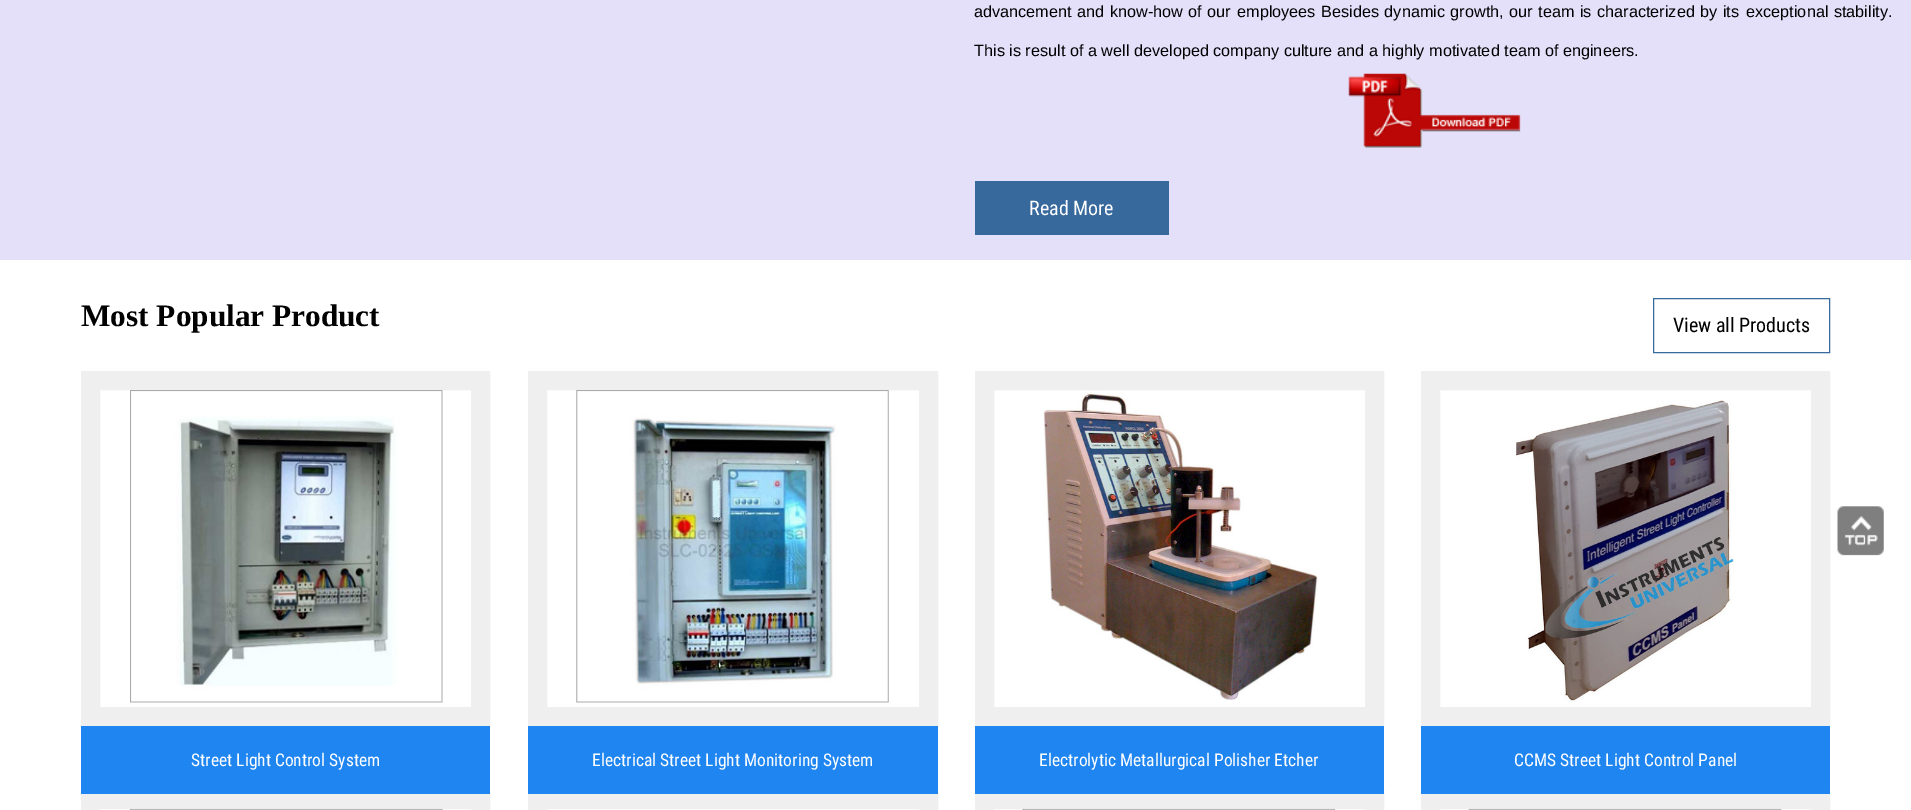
%!PS
<< /PageSize [1911 810] >> setpagedevice
/rgb { 3 { 255 div 3 1 roll } repeat setrgbcolor } def
/font { [ exch dup neg 0 0 3 -1 roll 0 0 ] selectfont } def
/picture { 5 dict begin { /h /w /y /x /name } { exch def } forall
  gsave x y translate w h scale
  w h 8 [w 0 0 h 0 0] name (r) file false 3 colorimage grestore end } def
0 810 translate 1 -1 scale
4 setmiterlimit
255 255 255 rgb
0 0 1911 810 rectfill
228 224 250 rgb
0 0 1911 260 rectfill
(img/1.rgb) 1348 73 173 75 picture
55 105 157 rgb
975 181 194 54 rectfill
1653.5 298.5 176 54 rectstroke
239 239 239 rgb
19 setlinewidth
90.5 380.5 390 336 rectstroke
(img/2.rgb) 130 390 313 313 picture
90.5 799.5 390 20 rectstroke
31 133 241 rgb
81 726 409 68 rectfill
239 239 239 rgb
537.5 380.5 391 336 rectstroke
(img/3.rgb) 576 390 313 313 picture
537.5 799.5 391 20 rectstroke
31 133 241 rgb
528 726 410 68 rectfill
239 239 239 rgb
984.5 380.5 390 336 rectstroke
(img/4.rgb) 1043 391 276 309 picture
984.5 799.5 390 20 rectstroke
31 133 241 rgb
975 726 409 68 rectfill
239 239 239 rgb
1430.5 380.5 390 336 rectstroke
(img/5.rgb) 1516 400 218 302 picture
1430.5 799.5 390 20 rectstroke
31 133 241 rgb
1421 726 409 68 rectfill
(img/6.rgb) 130 808 313 2 picture
(img/7.rgb) 779 809 6 1 picture
(img/8.rgb) 1022 808 313 2 picture
(img/9.rgb) 1468 808 314 2 picture
(img/10.rgb) 1837 506 47 50 picture
/LiberationSans-Regular 16.25 font
0 0 0 rgb
974 17 moveto 1 0 32 (advancement and know-how of our) widthshow
1237 17 moveto 1 0 32 (employees Besides dynamic growth, our team is characterized by its) widthshow
1746 17 moveto 1 0 32 (exceptional stability.) widthshow
974 56 moveto (This is result of a well developed company culture and a highly motivated team of engineers.) show
/RobotoCondensed-Regular 20 font
255 255 255 rgb
1029 215 moveto (Read More) show
/LiberationSerif-Bold 31.25 font
0 0 0 rgb
81 326 moveto (Most Popular Product) show
/RobotoCondensed-Regular 20 font
1673 332 moveto (View all Products) show
/RobotoCondensed-Regular 17.5 font
255 255 255 rgb
[
  [(Street Light Control System) 191 766]
  [(Electrical Street Light Monitoring System) 592 766]
  [(Electrolytic Metallurgical Polisher Etcher) 1039 766]
  [(CCMS Street Light Control Panel) 1514 766]
] { aload pop moveto show } forall
showpage
